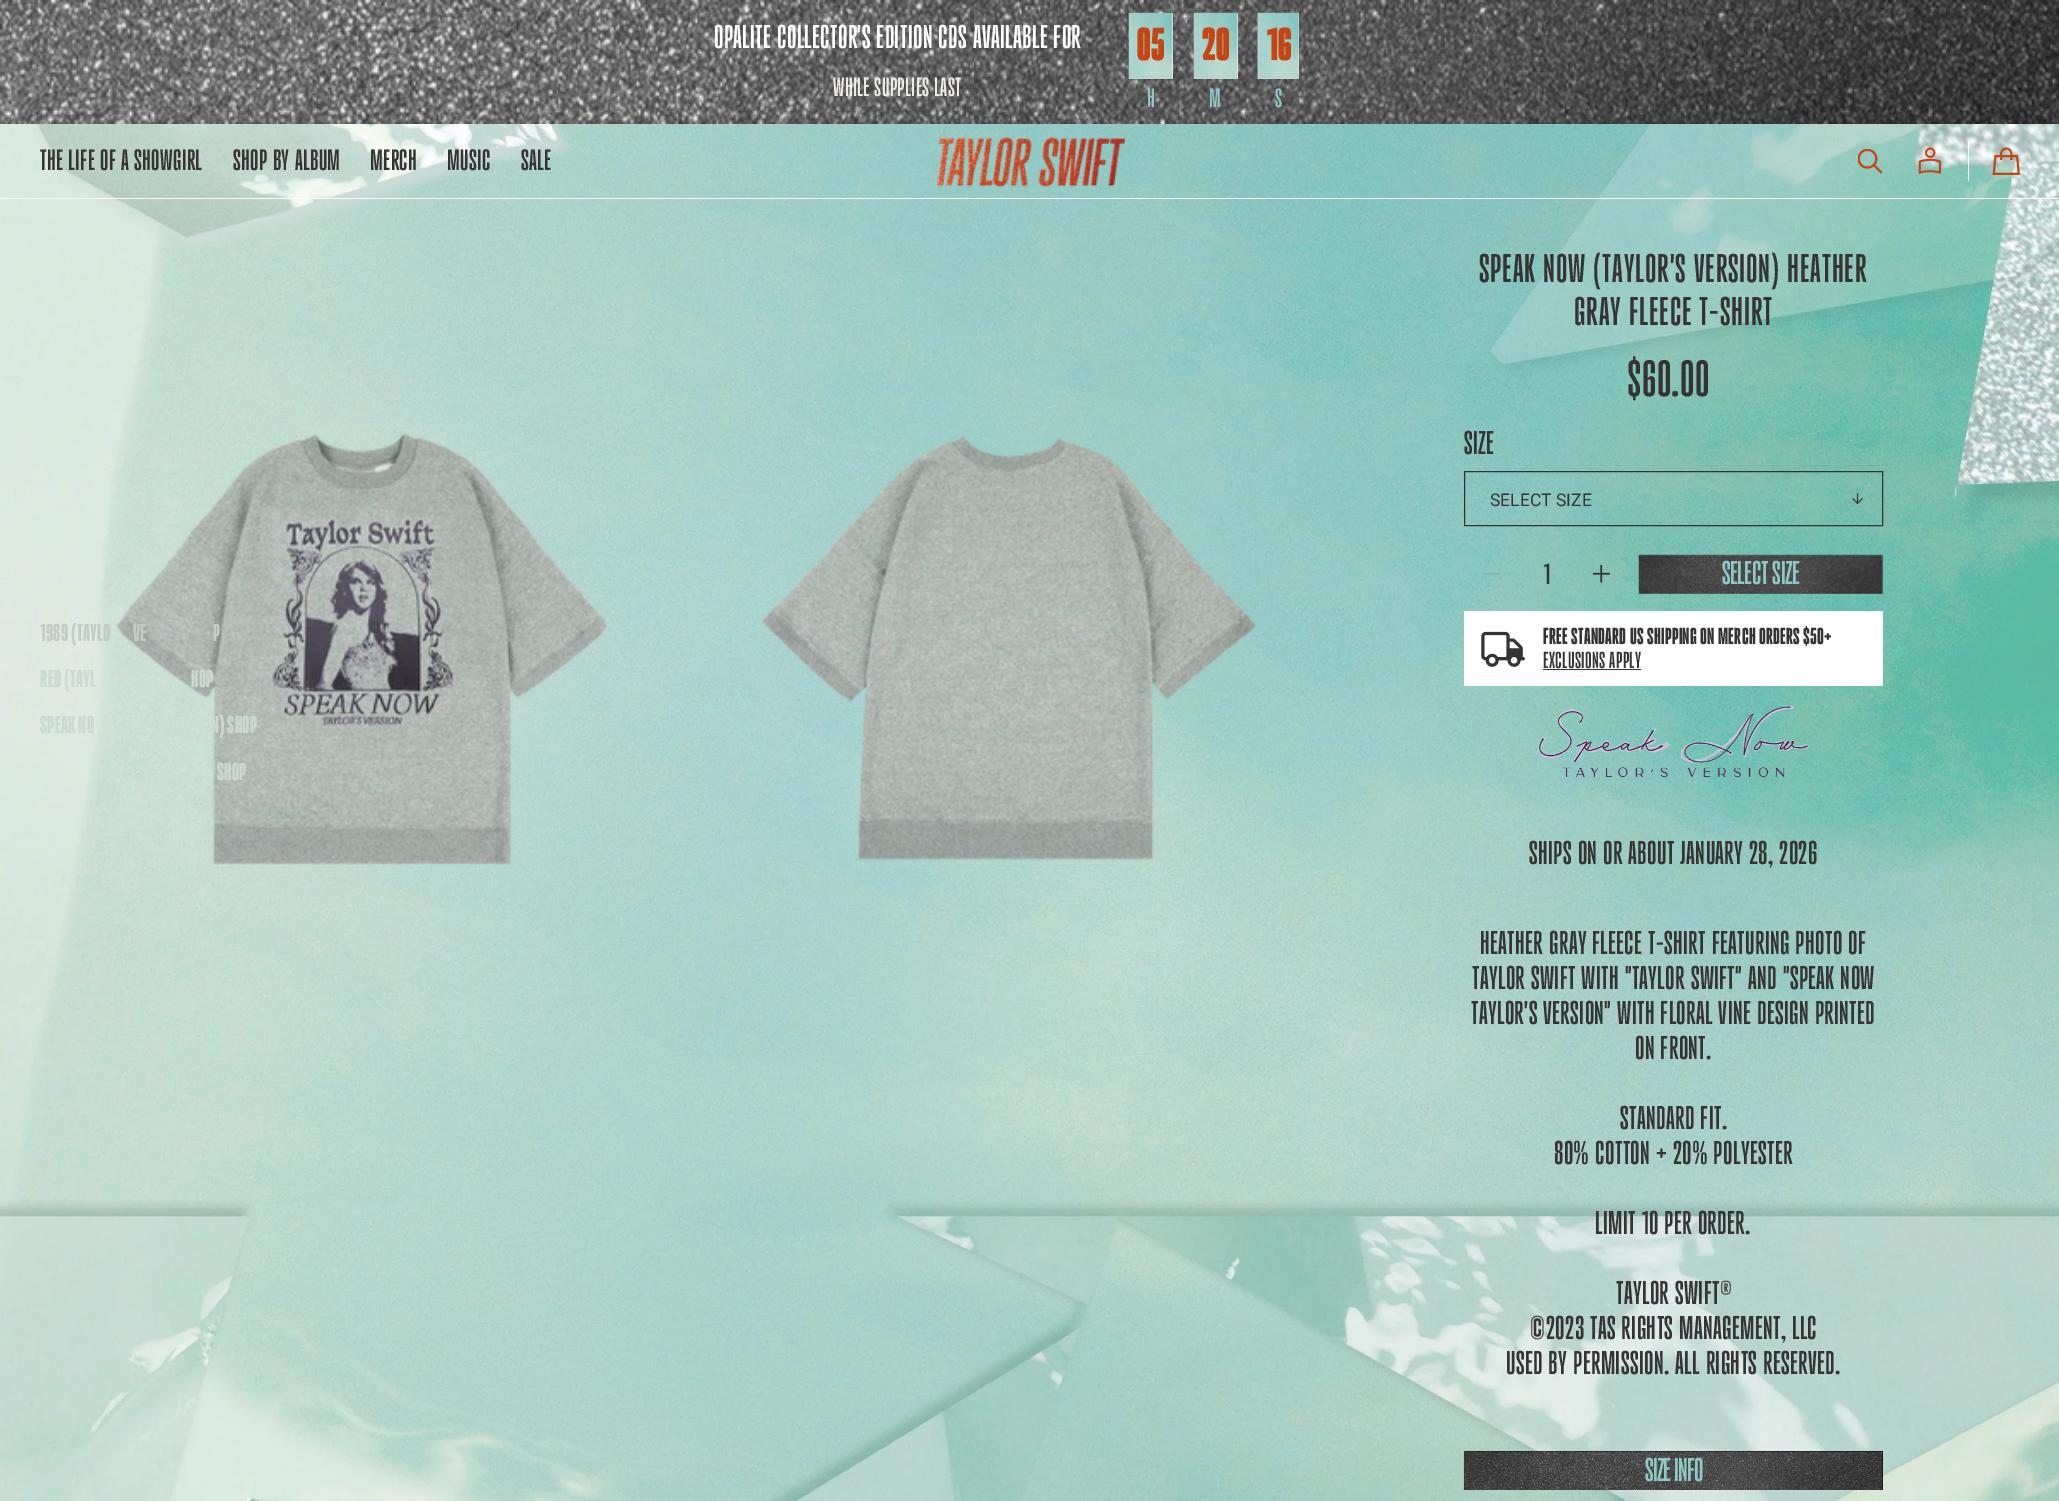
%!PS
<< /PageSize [2059 1501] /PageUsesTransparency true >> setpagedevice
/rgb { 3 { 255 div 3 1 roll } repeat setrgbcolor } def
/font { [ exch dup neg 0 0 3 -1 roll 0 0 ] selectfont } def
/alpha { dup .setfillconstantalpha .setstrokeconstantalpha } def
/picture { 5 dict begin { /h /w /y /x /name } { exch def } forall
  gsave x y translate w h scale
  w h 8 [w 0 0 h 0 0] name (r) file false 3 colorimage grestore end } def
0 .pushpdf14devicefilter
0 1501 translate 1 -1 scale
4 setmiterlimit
255 255 255 rgb
0 0 2059 1501 rectfill
(img/1.rgb) 0 0 2059 1501 picture
(img/2.rgb) 0 0 2059 124 picture
1129 13 44 66 rectfill
(img/3.rgb) 1128 12 45 67 picture
1194 13 44 66 rectfill
(img/4.rgb) 1193 12 45 67 picture
1258 13 41 66 rectfill
(img/5.rgb) 1257 12 42 67 picture
(img/6.rgb) 365 124 1694 61 picture
(img/7.rgb) 937 137 188 50 picture
(img/8.rgb) 1858 149 25 25 picture
(img/9.rgb) 1918 147 23 27 picture
1968 141 1 40 rectfill
(img/10.rgb) 1992 147 28 28 picture
0 198 2059 1 rectfill
(img/11.rgb) 116 433 492 432 picture
(img/12.rgb) 761 436 496 425 picture
52 52 52 rgb
1464.5 471.5 418 54 rectstroke
(img/13.rgb) 1852 493 11 12 picture
0.12 alpha
1490.5 574.5 moveto 1482.5 574.5 lineto 1482.5 573 lineto 1500 573 lineto 1500 574.5 lineto closepath fill
1 alpha
(img/14.rgb) 1593 565 17 18 picture
0.2 alpha
0 0 0 rgb
1639 555 244 39 rectfill
1 alpha
(img/15.rgb) 1638 554 245 40 picture
255 255 255 rgb
1464 611 419 75 rectfill
(img/16.rgb) 1481 631 44 36 picture
52 52 52 rgb
1543 669 98 1 rectfill
(img/17.rgb) 1538 706 271 72 picture
0 0 0 rgb
1464 1451 419 39 rectfill
(img/18.rgb) 1463 1451 420 39 picture
/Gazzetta-Regular 35 font
255 255 255 rgb
714 48 moveto 0.35 0 (OPALITE COLLECTOR'S EDITION CDS AVAILABLE FOR) ashow
/Gazzetta-Regular 28 font
237 235 231 rgb
833 96 moveto 0.35 0 (WHILE SUPPLIES LAST) ashow
/Gazzetta-Black 49 font
196 70 21 rgb
1137 60 moveto 0.35 0 (05) ashow
/Gazzetta-Regular 28 font
143 201 195 rgb
1147 107 moveto 0.35 0 (H) ashow
/Gazzetta-Black 49 font
196 70 21 rgb
1202 60 moveto 0.35 0 (20) ashow
/Gazzetta-Regular 28 font
143 201 195 rgb
1209 107 moveto 0.35 0 (M) ashow
/Gazzetta-Black 49 font
196 70 21 rgb
1267 60 moveto 0.35 0 (16) ashow
/Gazzetta-Regular 28 font
143 201 195 rgb
1275 107 moveto 0.35 0 (S) ashow
/Gazzetta-Regular 31.25 font
52 52 52 rgb
40 170 moveto 0.35 0 (THE LIFE OF A SHOWGIRL) ashow
233 170 moveto 0.35 0 (SHOP BY ALBUM) ashow
/Gazzetta-Bold 26 font
193 204 197 rgb
40 641 moveto -2 0 32 0.35 0 (1989 \(TAYLO) awidthshow
133 641 moveto -2 0 32 0.35 0 (VE) awidthshow
213 641 moveto -2 0 32 0.35 0 (P) awidthshow
203 218 208 rgb
40 687 moveto -2 0 32 0.35 0 (RED \(TAYL) awidthshow
191 687 moveto -2 0 32 0.35 0 (HOP) awidthshow
40 733 moveto -2 0 32 0.35 0 (SPEAK NO) awidthshow
211 733 moveto -2 0 32 0.35 0 (N\) SHOP) awidthshow
217 780 moveto -2 0 32 0.35 0 (SHOP) awidthshow
/Gazzetta-Regular 31.25 font
52 52 52 rgb
370 170 moveto 0.35 0 (MERCH) ashow
447 170 moveto 0.35 0 (MUSIC) ashow
521 170 moveto 0.35 0 (SALE) ashow
/Gazzetta-Regular 42.5 font
1479 282 moveto 0.85 0 (SPEAK NOW \(TAYLOR'S VERSION\) HEATHER) ashow
1574 325 moveto 0.85 0 (GRAY FLEECE T-SHIRT) ashow
/Gazzetta-Regular 54 font
1627 396 moveto 0.35 0 ($60.00) ashow
/Gazzetta-Regular 35 font
1464 454 moveto 0.35 0 (SIZE) ashow
/Roboto-Regular 17.5 font
1490 506 moveto (SELECT SIZE) show
/Gazzetta-Regular 31 font
1544 584 moveto (1) show
/Gazzetta-Regular 35 font
143 201 195 rgb
1722 584 moveto -0.5 0 (SELECT SIZE) ashow
/Gazzetta-Bold 24.5 font
52 52 52 rgb
1543 644 moveto -1 0 32 0.35 0 (FREE STANDARD US SHIPPING ON MERCH ORDERS $50+) awidthshow
/Gazzetta-Regular 24.5 font
1543 668 moveto 0.35 0 (EXCLUSIONS APPLY) ashow
/Gazzetta-Regular 35 font
1529 864 moveto 0.35 0 (SHIPS ON OR ABOUT JANUARY 28, 2026) ashow
1480 954 moveto 0.35 0 (HEATHER GRAY FLEECE T-SHIRT FEATURING PHOTO OF) ashow
1472 989 moveto 0.35 0 (TAYLOR SWIFT WITH "TAYLOR SWIFT" AND "SPEAK NOW) ashow
1471 1024 moveto 0.35 0 (TAYLOR'S VERSION" WITH FLORAL VINE DESIGN PRINTED) ashow
1635 1059 moveto 0.35 0 (ON FRONT.) ashow
1620 1129 moveto 0.35 0 (STANDARD FIT.) ashow
1554 1164 moveto 0.35 0 (80% COTTON + 20% POLYESTER) ashow
1595 1234 moveto 0.35 0 (LIMIT 10 PER ORDER.) ashow
1616 1304 moveto 0.35 0 (TAYLOR SWIFT®) ashow
1529 1339 moveto 0.35 0 (©2023 TAS RIGHTS MANAGEMENT, LLC) ashow
1506 1374 moveto 0.35 0 (USED BY PERMISSION. ALL RIGHTS RESERVED.) ashow
143 201 195 rgb
1645 1481 moveto -1 0 (SIZE INFO) ashow
.poppdf14devicefilter showpage
